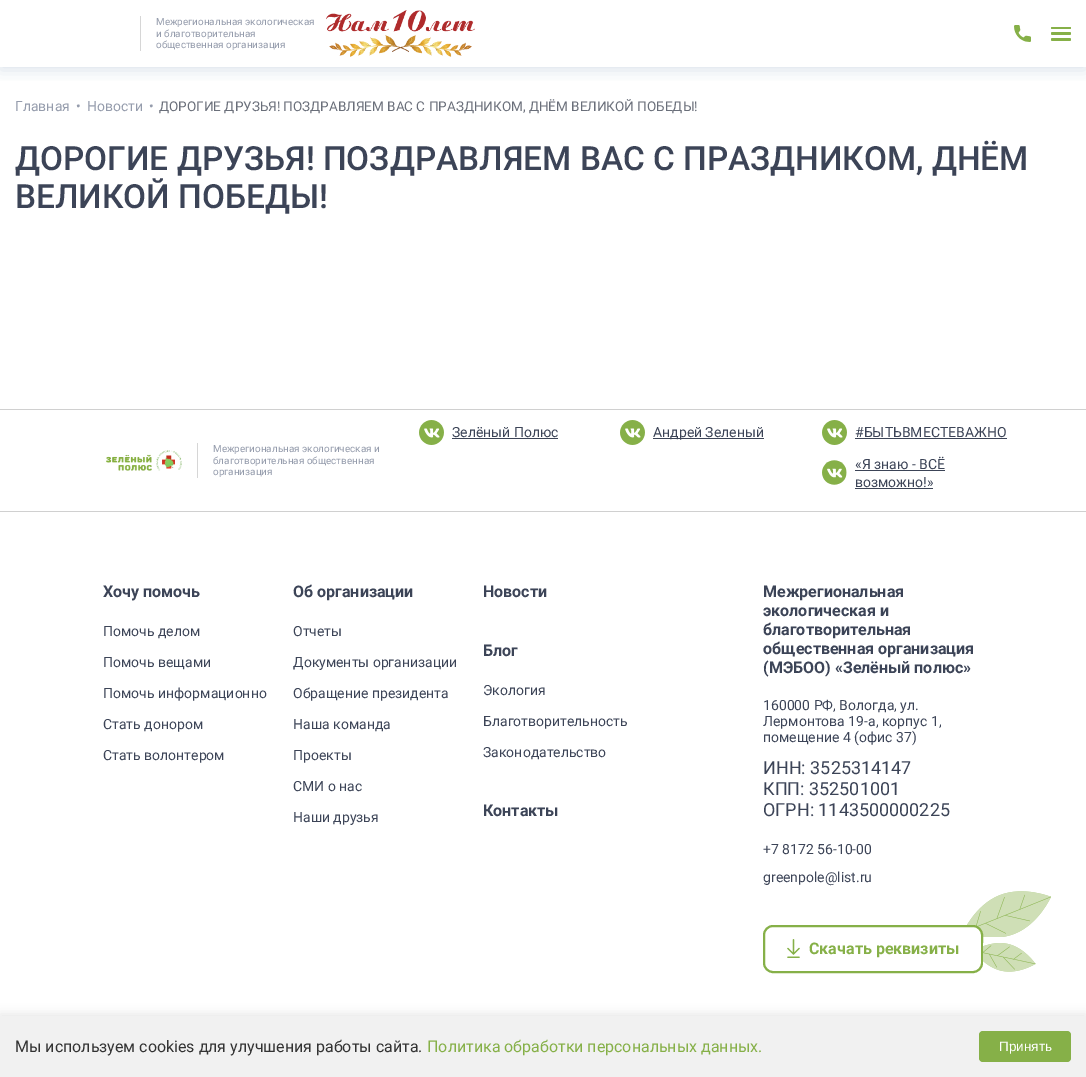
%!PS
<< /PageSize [1086 1077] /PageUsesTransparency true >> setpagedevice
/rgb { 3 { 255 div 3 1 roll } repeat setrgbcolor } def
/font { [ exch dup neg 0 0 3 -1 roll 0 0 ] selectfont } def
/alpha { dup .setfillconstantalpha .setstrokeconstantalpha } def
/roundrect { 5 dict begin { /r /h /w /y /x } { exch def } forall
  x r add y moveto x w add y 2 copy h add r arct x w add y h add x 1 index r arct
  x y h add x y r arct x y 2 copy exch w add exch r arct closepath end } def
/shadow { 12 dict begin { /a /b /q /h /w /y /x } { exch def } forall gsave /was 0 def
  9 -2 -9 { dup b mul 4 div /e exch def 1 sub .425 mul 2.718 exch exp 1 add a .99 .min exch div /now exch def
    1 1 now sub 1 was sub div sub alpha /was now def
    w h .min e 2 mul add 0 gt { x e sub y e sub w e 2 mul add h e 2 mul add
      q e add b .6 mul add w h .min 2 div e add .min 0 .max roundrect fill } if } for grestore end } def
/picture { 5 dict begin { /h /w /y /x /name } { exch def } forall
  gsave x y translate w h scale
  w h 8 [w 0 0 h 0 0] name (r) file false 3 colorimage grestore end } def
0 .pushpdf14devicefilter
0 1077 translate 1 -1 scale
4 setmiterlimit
255 255 255 rgb
0 0 1086 1077 rectfill
gsave
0 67 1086 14 rectclip
111 140 182 rgb
0 3 1086 67 0 7.5 0.25 shadow
grestore
214 214 214 rgb
140 16 1 35 rectfill
(img/1.rgb) 326 10 149 47 picture
(img/2.rgb) 1014 25 17 17 picture
134 176 72 rgb
1051 32 20 3 1.5 roundrect fill
1051 27 20 2 1 roundrect fill
1051 38 20 3 1.5 roundrect fill
208 208 208 rgb
0 409 1086 1 rectfill
0 511 1086 1 rectfill
(img/3.rgb) 106 450 76 21 picture
214 214 214 rgb
197 443 1 35 rectfill
(img/4.rgb) 419 420 25 25 picture
60 68 87 rgb
452 438 106 1 rectfill
(img/4.rgb) 620 420 25 25 picture
653 438 111 1 rectfill
(img/4.rgb) 822 420 25 25 picture
855 438 152 1 rectfill
(img/5.rgb) 822 460 25 25 picture
855 470 90 1 rectfill
855 488 78 1 rectfill
(img/6.rgb) 967 891 84 46 picture
255 255 255 rgb
764 926 218 46 9 roundrect gsave fill grestore
134 176 72 rgb
2 setlinewidth
stroke
(img/7.rgb) 787 939 13 19 picture
(img/8.rgb) 983 943 53 29 picture
0 0 0 rgb
0 1014 1086 61 0 5 0.1 shadow
241 241 241 rgb
0 1016 1086 61 rectfill
134 176 72 rgb
979 1031 92 31 4 roundrect fill
/Roboto-Regular 9.9 font
149 156 172 rgb
[
  [(Межрегиональная экологическая) 156 25]
  [(и благотворительная) 156 37]
  [(общественная организация) 156 48]
] { aload pop moveto show } forall
/Roboto-Regular 14 font
[
  [(Главная) 15 111]
  [(•) 76 111]
  [(Новости) 87 111]
  [(•) 149 111]
] { aload pop moveto show } forall
/Roboto-Regular 13.5 font
106 111 122 rgb
159 111 moveto (ДОРОГИЕ ДРУЗЬЯ! ПОЗДРАВЛЯЕМ ВАС С ПРАЗДНИКОМ, ДНЁМ ВЕЛИКОЙ ПОБЕДЫ!) show
/Roboto-Medium 33.3 font
60 68 87 rgb
15 170 moveto (ДОРОГИЕ ДРУЗЬЯ! ПОЗДРАВЛЯЕМ ВАС С ПРАЗДНИКОМ, ДНЁМ) show
15 208 moveto (ВЕЛИКОЙ ПОБЕДЫ!) show
/Roboto-Regular 9.9 font
149 156 172 rgb
[
  [(Межрегиональная экологическая и) 213 452]
  [(благотворительная общественная) 213 464]
  [(организация) 213 475]
] { aload pop moveto show } forall
/Roboto-Regular 14 font
60 68 87 rgb
[
  [(Зелёный Полюс) 452 437]
  [(Андрей Зеленый) 653 437]
  [(#БЫТЬВМЕСТЕВАЖНО) 855 437]
  [(«Я знаю - ВСЁ) 855 469]
  [(возможно!») 855 487]
] { aload pop moveto show } forall
/Roboto-Bold 16 font
103 597 moveto (Хочу помочь) show
/Roboto-Regular 14 font
[
  [(Помочь делом) 103 636]
  [(Помочь вещами) 103 667]
  [(Помочь информационно) 103 698]
  [(Стать донором) 103 729]
  [(Стать волонтером) 103 760]
] { aload pop moveto show } forall
/Roboto-Bold 16 font
293 597 moveto (Об организации) show
/Roboto-Regular 14 font
[
  [(Отчеты) 293 636]
  [(Документы организации) 293 667]
  [(Обращение президента) 293 698]
  [(Наша команда) 293 729]
  [(Проекты) 293 760]
  [(СМИ о нас) 293 791]
  [(Наши друзья) 293 822]
] { aload pop moveto show } forall
/Roboto-Bold 16 font
483 597 moveto (Новости) show
483 656 moveto (Блог) show
/Roboto-Regular 14 font
[
  [(Экология) 483 695]
  [(Благотворительность) 483 726]
  [(Законодательство) 483 757]
] { aload pop moveto show } forall
/Roboto-Bold 16 font
[
  [(Контакты) 483 816]
  [(Межрегиональная) 763 597]
  [(экологическая и) 763 616]
  [(благотворительная) 763 635]
  [(общественная организация) 763 654]
  [(\(МЭБОО\) «Зелёный полюс») 763 673]
] { aload pop moveto show } forall
/Roboto-Regular 14 font
[
  [(160000 РФ, Вологда, ул.) 763 710]
  [(Лермонтова 19-а, корпус 1,) 763 726]
  [(помещение 4 \(офис 37\)) 763 742]
] { aload pop moveto show } forall
/Roboto-Regular 18 font
[
  [(ИНН: 3525314147) 763 774]
  [(КПП: 352501001) 763 795]
  [(ОГРН: 1143500000225) 763 816]
] { aload pop moveto show } forall
/Roboto-Regular 14 font
763 854 moveto (+7 8172 56-10-00) show
763 882 moveto (greenpole@list.ru) show
/Roboto-Bold 16 font
134 176 72 rgb
809 954 moveto (Скачать реквизиты) show
/Roboto-Regular 16 font
51 51 51 rgb
15 1052 moveto (Мы используем cookies для улучшения работы сайта.) show
134 176 72 rgb
427 1052 moveto (Политика обработки персональных данных.) show
/LiberationSans-Regular 13.5 font
255 255 255 rgb
999 1051 moveto (Принять) show
.poppdf14devicefilter showpage
